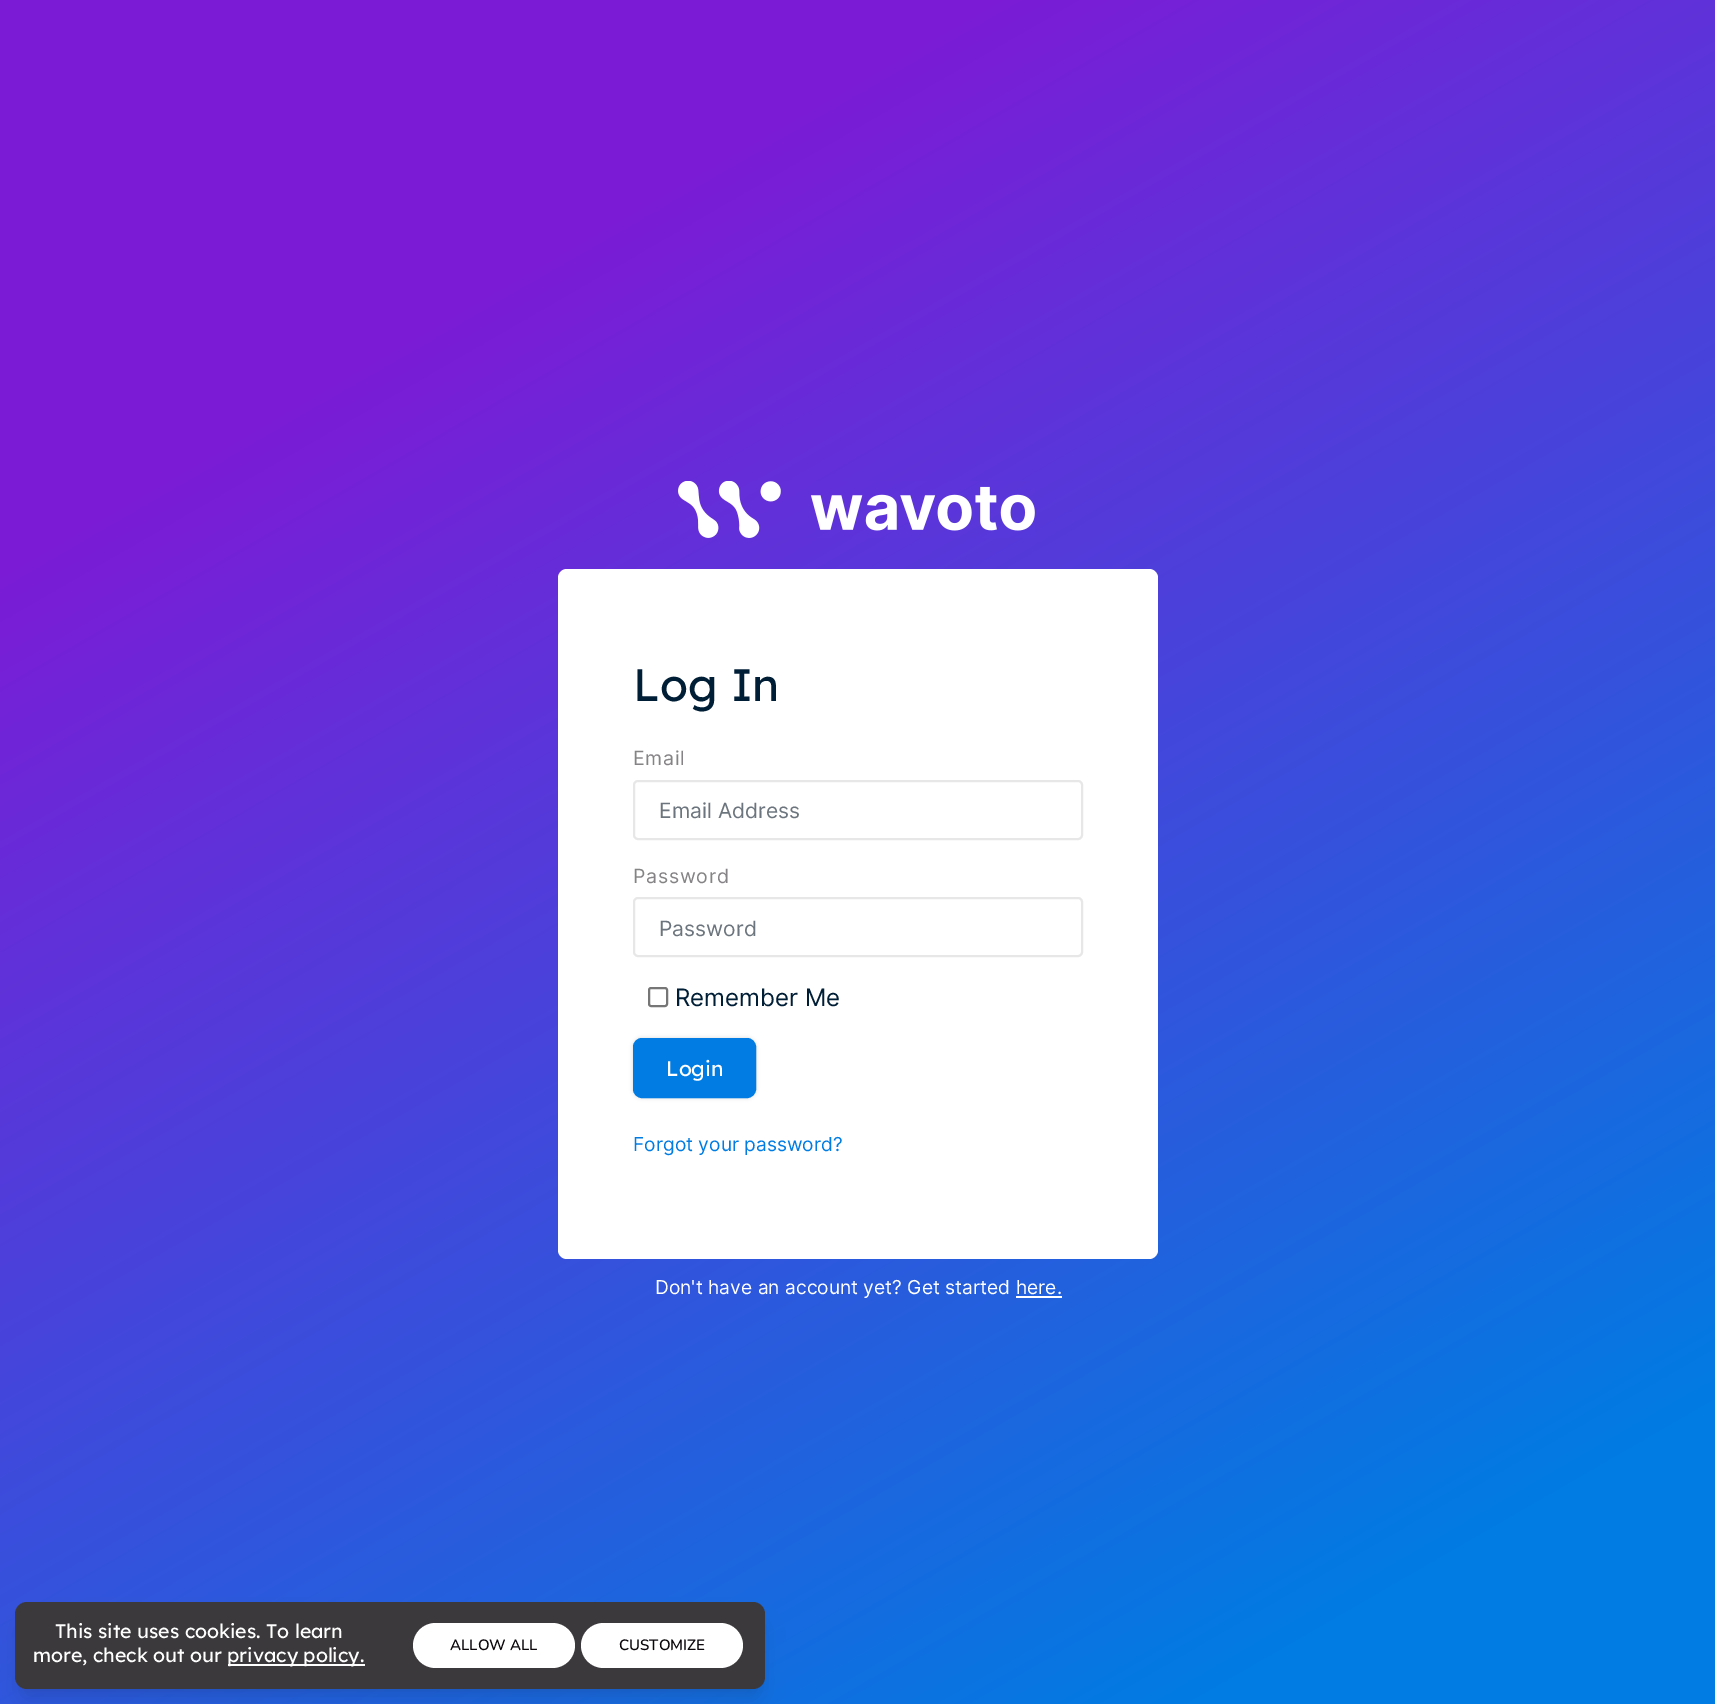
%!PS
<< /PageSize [1715 1704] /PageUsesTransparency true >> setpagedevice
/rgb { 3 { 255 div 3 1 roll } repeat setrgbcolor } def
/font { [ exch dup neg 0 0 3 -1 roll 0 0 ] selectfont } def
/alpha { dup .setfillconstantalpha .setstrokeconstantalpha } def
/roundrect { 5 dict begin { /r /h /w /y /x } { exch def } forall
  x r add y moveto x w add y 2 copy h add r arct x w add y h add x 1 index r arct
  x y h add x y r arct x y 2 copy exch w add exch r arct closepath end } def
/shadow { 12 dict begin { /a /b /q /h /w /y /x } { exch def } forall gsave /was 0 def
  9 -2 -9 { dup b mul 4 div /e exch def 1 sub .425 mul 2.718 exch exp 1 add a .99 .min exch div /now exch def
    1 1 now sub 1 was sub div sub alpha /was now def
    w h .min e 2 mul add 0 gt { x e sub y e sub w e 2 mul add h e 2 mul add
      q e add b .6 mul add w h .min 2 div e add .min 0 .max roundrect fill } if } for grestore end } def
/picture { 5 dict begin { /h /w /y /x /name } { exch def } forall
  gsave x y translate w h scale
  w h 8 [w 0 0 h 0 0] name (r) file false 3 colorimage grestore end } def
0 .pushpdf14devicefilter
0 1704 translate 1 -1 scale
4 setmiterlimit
255 255 255 rgb
0 0 1715 1704 rectfill
gsave 0 0 moveto 1715 0 lineto 1715 1704 lineto 0 1704 lineto closepath clip newpath
<< /ShadingType 2 /ColorSpace /DeviceRGB /Coords [1441 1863 275 -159] /Extend [true true] /Function << /FunctionType 3 /Domain [0 1] /Functions [<< /FunctionType 2 /Domain [0 1] /C0 [0 0.486 0.886] /C1 [0 0.486 0.886] /N 1 >> << /FunctionType 2 /Domain [0 1] /C0 [0 0.486 0.886] /C1 [0.486 0.106 0.839] /N 1 >> << /FunctionType 2 /Domain [0 1] /C0 [0.486 0.106 0.839] /C1 [0.486 0.106 0.839] /N 1 >>] /Bounds [0.11 0.79] /Encode [0 1 0 1 0 1] >> >> shfill grestore
(img/1.rgb) 678 481 357 57 picture
558 569 600 690 9 roundrect fill
231 231 231 rgb
2 setlinewidth
634 781 448 58 4 roundrect stroke
634 898 448 58 4 roundrect stroke
118 118 118 rgb
649 988 18 18 2 roundrect stroke
0 0 0 rgb
633 1038 123 60 9 2 0.15 shadow
0 124 226 rgb
634.5 1039.5 120 57 7.5 roundrect gsave fill grestore
3 setlinewidth
stroke
255 255 255 rgb
1016 1296 46 2 rectfill
16 24 40 rgb
21 1614 738 75 6 4.5 0.1 shadow
0 0 0 rgb
20 1622 741 78 8 11 0.1 shadow
60 57 60 rgb
15 1602 750 87 12 roundrect fill
255 255 255 rgb
228 1664 137 2 rectfill
413 1623 162 45 22.5 roundrect fill
581 1623 162 45 22.5 roundrect fill
/Lexend-Regular 45.5 font
0 30 54 rgb
633 701 moveto (Log In) show
/Inter-Regular 19.5 font
133 131 133 rgb
633 765 moveto 0.75 0 (Email) ashow
/Inter-Regular 21 font
108 117 125 rgb
659 818 moveto (Email Address) show
/Inter-Regular 19.5 font
133 131 133 rgb
633 883 moveto 0.75 0 (Password) ashow
/Inter-Regular 21 font
108 117 125 rgb
659 936 moveto (Password) show
/Inter-Regular 24 font
0 30 54 rgb
675 1006 moveto (Remember Me) show
/Lexend-Regular 21 font
255 255 255 rgb
666 1076 moveto (Login) show
/Inter-Regular 19.2 font
0 124 226 rgb
633 1151 moveto (Forgot your password?) show
255 255 255 rgb
655 1294 moveto (Don't have an account yet? Get started here.) show
/Lexend-Regular 19.5 font
[
  [(This site uses cookies. To learn) 55 1638]
  [(more, check out our) 33 1662]
  [(privacy policy.) 227 1662]
] { aload pop moveto show } forall
/Nunito-SemiBold 15 font
11 7 11 rgb
450 1650 moveto (ALLOW ALL) show
619 1650 moveto (CUSTOMIZE) show
.poppdf14devicefilter showpage
